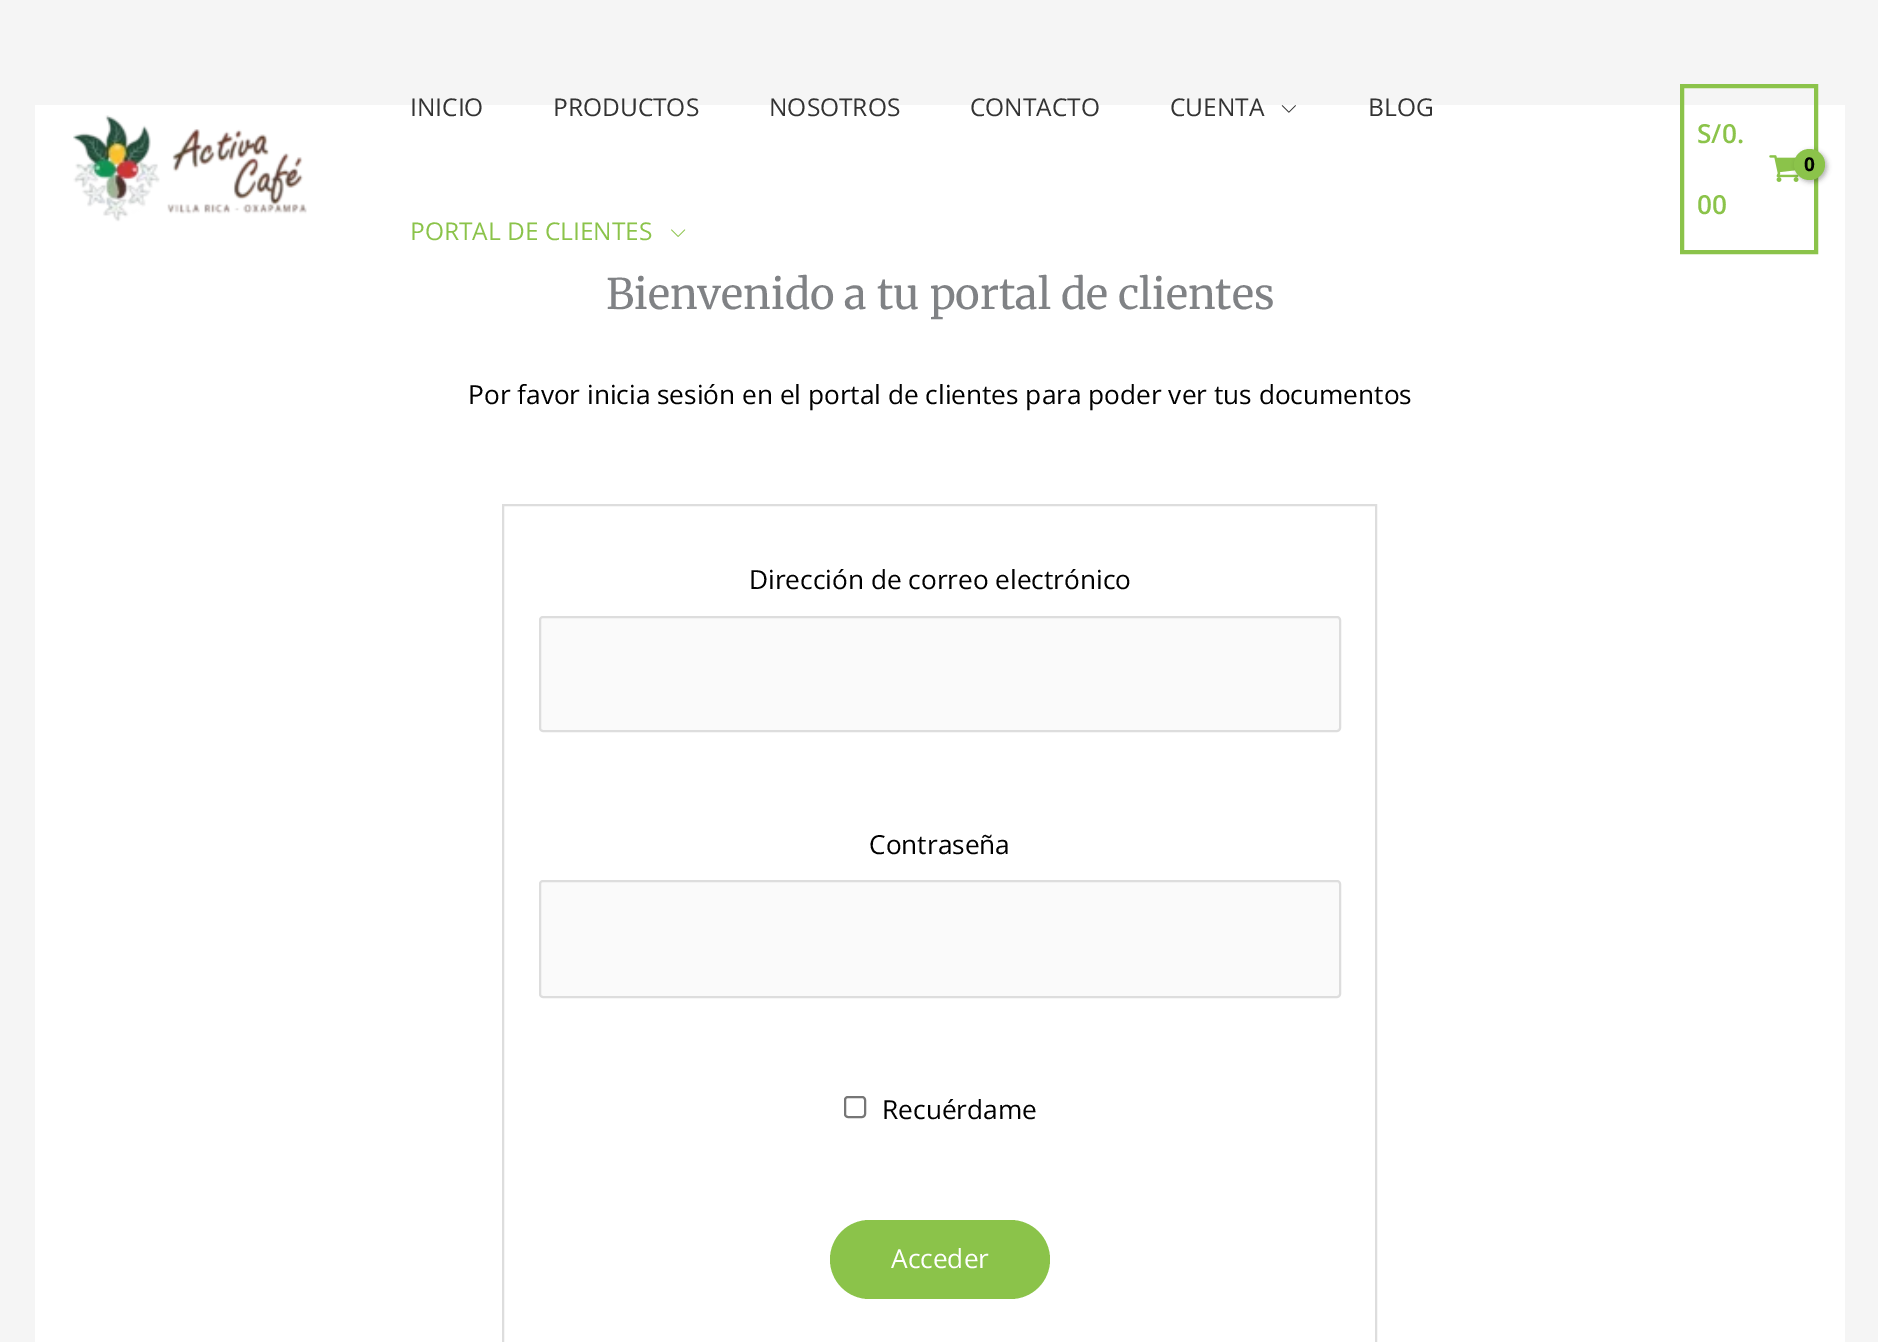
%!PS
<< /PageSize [1878 1342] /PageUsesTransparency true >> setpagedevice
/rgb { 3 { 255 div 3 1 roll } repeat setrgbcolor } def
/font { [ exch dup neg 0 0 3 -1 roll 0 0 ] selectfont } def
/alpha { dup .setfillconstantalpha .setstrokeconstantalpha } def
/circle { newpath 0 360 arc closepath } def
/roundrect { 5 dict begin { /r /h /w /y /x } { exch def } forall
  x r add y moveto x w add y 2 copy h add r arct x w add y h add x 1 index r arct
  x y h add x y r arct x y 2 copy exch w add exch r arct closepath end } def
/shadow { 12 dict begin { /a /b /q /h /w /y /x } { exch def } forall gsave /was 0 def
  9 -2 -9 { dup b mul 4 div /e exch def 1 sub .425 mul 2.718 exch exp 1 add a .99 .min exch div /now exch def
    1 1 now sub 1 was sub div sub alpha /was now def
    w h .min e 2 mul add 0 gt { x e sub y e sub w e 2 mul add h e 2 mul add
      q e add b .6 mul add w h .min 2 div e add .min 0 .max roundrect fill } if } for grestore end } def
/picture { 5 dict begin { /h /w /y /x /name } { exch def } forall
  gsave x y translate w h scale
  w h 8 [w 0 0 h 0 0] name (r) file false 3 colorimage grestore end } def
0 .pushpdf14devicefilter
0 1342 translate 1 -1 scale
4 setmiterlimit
245 245 245 rgb
0 0 1878 1342 rectfill
255 255 255 rgb
35 105 1810 1237 rectfill
(img/1.rgb) 73 115 234 107 picture
(img/2.rgb) 1281 105 15 8 picture
(img/3.rgb) 671 229 15 8 picture
139 195 74 rgb
4 setlinewidth
1682 86 134 166 rectstroke
(img/4.rgb) 1769 155 30 27 picture
0 0 0 rgb
1796 151 31 31 15.5 2.5 0.3 shadow
139 195 74 rgb
1809.5 164.5 15.5 circle fill
221 221 221 rgb
2 setlinewidth
503 505 873 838 rectstroke
250 250 250 rgb
540 617 800 114 3 roundrect gsave fill grestore
221 221 221 rgb
stroke
250 250 250 rgb
540 881 800 116 3 roundrect gsave fill grestore
221 221 221 rgb
stroke
118 118 118 rgb
845 1097 20 20 3 roundrect stroke
139 195 74 rgb
830 1220 220 79 39.5 roundrect fill
/OpenSans-Regular 24.5 font
51 51 51 rgb
[
  [(INICIO) 410 116]
  [(PRODUCTOS) 553 116]
  [(NOSOTROS) 769 116]
  [(CONTACTO) 970 116]
  [(CUENTA) 1170 116]
  [(BLOG) 1368 116]
] { aload pop moveto show } forall
139 195 74 rgb
410 240 moveto (PORTAL DE CLIENTES) show
/OpenSans-SemiBold 26.25 font
1697 143 moveto (S/0.) show
1697 214 moveto (00) show
/OpenSans-Bold 19 font
0 0 0 rgb
1804 171 moveto -1 0 (0) ashow
/Merriweather-Regular 42 font
128 130 133 rgb
606 309 moveto (Bienvenido a tu portal de clientes) show
/OpenSans-Regular 26.25 font
0 0 0 rgb
[
  [(Por favor inicia sesión en el portal de clientes para poder ver tus documentos) 468 404]
  [(Dirección de correo electrónico) 749 589]
  [(Contraseña) 869 854]
  [(Recuérdame) 882 1119]
] { aload pop moveto show } forall
255 255 255 rgb
891 1268 moveto (Acceder) show
.poppdf14devicefilter showpage
